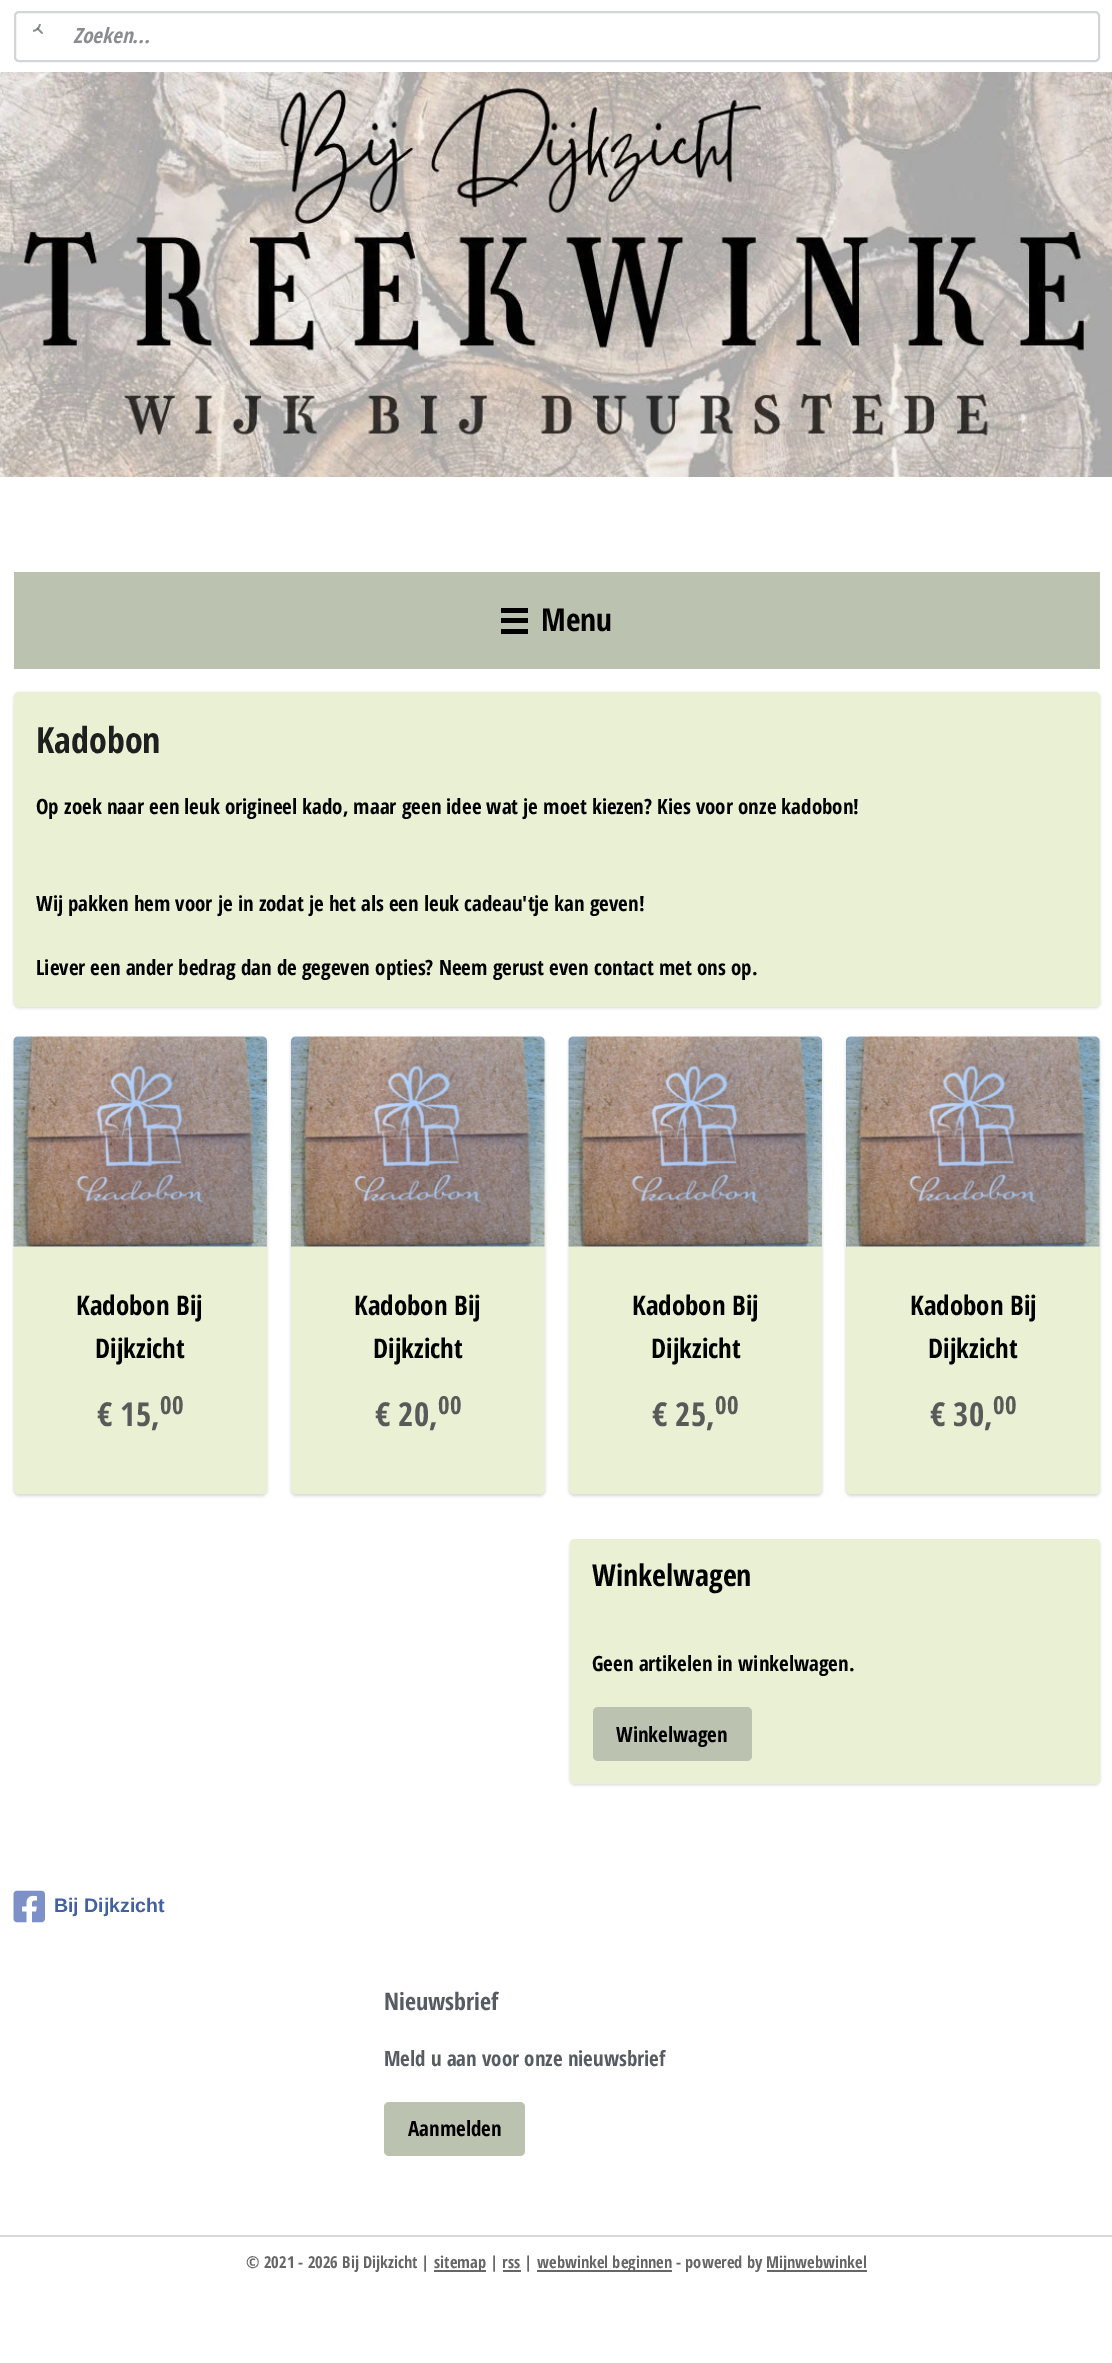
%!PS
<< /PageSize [1112 2363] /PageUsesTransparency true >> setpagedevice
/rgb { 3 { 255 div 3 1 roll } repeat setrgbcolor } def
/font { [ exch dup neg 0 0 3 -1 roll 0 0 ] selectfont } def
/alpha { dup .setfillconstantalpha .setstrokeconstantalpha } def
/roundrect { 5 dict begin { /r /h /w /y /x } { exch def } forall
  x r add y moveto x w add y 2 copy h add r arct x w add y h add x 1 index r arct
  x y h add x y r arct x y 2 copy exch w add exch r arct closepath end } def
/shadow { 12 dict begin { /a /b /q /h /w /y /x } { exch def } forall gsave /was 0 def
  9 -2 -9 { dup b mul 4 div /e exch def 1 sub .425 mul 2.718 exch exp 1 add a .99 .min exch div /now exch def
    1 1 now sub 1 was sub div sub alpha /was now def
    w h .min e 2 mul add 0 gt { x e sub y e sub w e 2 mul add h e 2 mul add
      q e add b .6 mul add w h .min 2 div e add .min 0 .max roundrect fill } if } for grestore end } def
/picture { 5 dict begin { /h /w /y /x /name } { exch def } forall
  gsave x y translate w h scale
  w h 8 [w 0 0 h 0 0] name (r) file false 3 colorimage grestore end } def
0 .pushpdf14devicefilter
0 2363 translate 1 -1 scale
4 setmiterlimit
255 255 255 rgb
0 0 1112 2363 rectfill
211 213 217 rgb
2 setlinewidth
15 12 1084 49 4 roundrect stroke
(img/1.rgb) 33 24 10 10 picture
(img/2.rgb) 0 72 1112 405 picture
[
  [14 572 1086 97 188 194 176]
  [501 618 27 5 0 0 0]
  [501 608 27 5 0 0 0]
  [501 629 27 5 0 0 0]
] { aload pop rgb rectfill } forall
14 693 1086 315 5 1.5 0.15 shadow
233 240 211 rgb
14 692 1086 315 5 roundrect fill
0 0 0 rgb
14 1038 253 458 5 1.5 0.15 shadow
233 240 211 rgb
14 1037 253 457 5 roundrect fill
(img/3.rgb) 13 1036 254 211 picture
0 0 0 rgb
291 1038 254 458 5 1.5 0.15 shadow
233 240 211 rgb
291 1037 254 457 5 roundrect fill
(img/4.rgb) 291 1036 254 211 picture
0 0 0 rgb
569 1038 253 458 5 1.5 0.15 shadow
233 240 211 rgb
569 1037 253 457 5 roundrect fill
(img/3.rgb) 568 1036 254 211 picture
0 0 0 rgb
846 1038 254 458 5 1.5 0.15 shadow
233 240 211 rgb
846 1037 254 457 5 roundrect fill
(img/4.rgb) 846 1036 254 211 picture
0 0 0 rgb
570 1541 530 244 5 1.5 0.15 shadow
233 240 211 rgb
570 1539 530 245 5 roundrect fill
575 1539 moveto 1095 1539 lineto 1098 1539 1100 1541 1100 1544 curveto 1100 1611 lineto 570 1611 lineto 570 1544 lineto 570 1541 572 1539 575 1539 curveto closepath fill
188 194 176 rgb
593 1707 159 54 5 roundrect fill
(img/5.rgb) 13 1890 32 33 picture
384 2102 141 54 5 roundrect fill
[
  [0 2235 1112 2 217 217 217]
  [434 2270 52 2 102 102 102]
  [537 2270 135 2 102 102 102]
  [767 2270 100 2 102 102 102]
  [503 2270 18 2 102 102 102]
] { aload pop rgb rectfill } forall
/OpenSansCondensed-BoldItalic 21 font
137 140 145 rgb
73 43 moveto (Zoeken...) show
/OpenSansCondensed-Bold 31.5 font
0 0 0 rgb
541 631 moveto (Menu) show
/OpenSansCondensed-Bold 36 font
31 31 31 rgb
36 753 moveto (Kadobon) show
/OpenSansCondensed-Bold 21 font
0 0 0 rgb
[
  [(Op zoek naar een leuk origineel kado, maar geen idee wat je moet kiezen? Kies voor onze kadobon!) 36 814]
  [(Wij pakken hem voor je in zodat je het als een leuk cadeau'tje kan geven!) 36 911]
  [(Liever een ander bedrag dan de gegeven opties? Neem gerust even contact met ons op.) 36 975]
] { aload pop moveto show } forall
/OpenSansCondensed-Bold 27 font
76 1315 moveto (Kadobon Bij) show
95 1358 moveto (Dijkzicht) show
/OpenSansCondensed-Bold 33 font
89 89 89 rgb
97 1426 moveto (€ 15,) show
/OpenSansCondensed-Bold 25 font
160 1414 moveto (00) show
/OpenSansCondensed-Bold 27 font
0 0 0 rgb
354 1315 moveto (Kadobon Bij) show
373 1358 moveto (Dijkzicht) show
/OpenSansCondensed-Bold 33 font
89 89 89 rgb
375 1426 moveto (€ 20,) show
/OpenSansCondensed-Bold 25 font
438 1414 moveto (00) show
/OpenSansCondensed-Bold 27 font
0 0 0 rgb
632 1315 moveto (Kadobon Bij) show
651 1358 moveto (Dijkzicht) show
/OpenSansCondensed-Bold 33 font
89 89 89 rgb
652 1426 moveto (€ 25,) show
/OpenSansCondensed-Bold 25 font
715 1414 moveto (00) show
/OpenSansCondensed-Bold 27 font
0 0 0 rgb
910 1315 moveto (Kadobon Bij) show
928 1358 moveto (Dijkzicht) show
/OpenSansCondensed-Bold 33 font
89 89 89 rgb
930 1426 moveto (€ 30,) show
/OpenSansCondensed-Bold 25 font
993 1414 moveto (00) show
/OpenSansCondensed-Bold 30 font
0 0 0 rgb
592 1586 moveto (Winkelwagen) show
/OpenSansCondensed-Bold 21 font
592 1671 moveto (Geen artikelen in winkelwagen.) show
616 1742 moveto (Winkelwagen) show
/LiberationSans-Bold 19.5 font
64 98 163 rgb
54 1912 moveto (Bij Dijkzicht) show
/OpenSansCondensed-Bold 24 font
87 91 98 rgb
384 2010 moveto (Nieuwsbrief) show
/OpenSansCondensed-Bold 21 font
384 2066 moveto (Meld u aan voor onze nieuwsbrief) show
0 0 0 rgb
408 2136 moveto (Aanmelden) show
/OpenSansCondensed-Bold 16.5 font
102 102 102 rgb
[
  [(© 2021 - 2026 Bij Dijkzicht |) 246 2268]
  [(sitemap) 434 2268]
  [(| rss |) 490 2268]
  [(webwinkel beginnen) 537 2268]
  [(- powered by) 676 2268]
  [(Mijnwebwinkel) 766 2268]
] { aload pop moveto show } forall
.poppdf14devicefilter showpage
